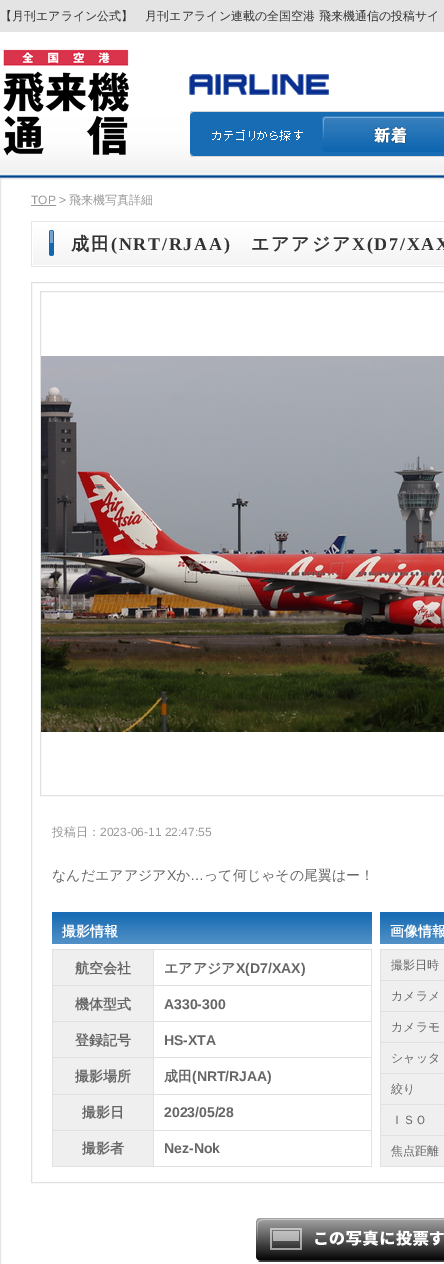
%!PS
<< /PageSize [444 1264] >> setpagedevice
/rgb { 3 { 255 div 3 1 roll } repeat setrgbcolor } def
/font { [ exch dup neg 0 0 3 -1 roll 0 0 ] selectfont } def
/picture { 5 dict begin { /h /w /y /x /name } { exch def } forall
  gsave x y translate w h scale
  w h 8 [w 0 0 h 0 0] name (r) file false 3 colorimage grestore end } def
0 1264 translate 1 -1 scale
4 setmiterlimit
255 255 255 rgb
0 0 444 1264 rectfill
228 228 228 rgb
0 0 444 32 rectfill
(img/1.rgb) 0 32 444 146 picture
(img/2.rgb) 3 49 126 107 picture
(img/3.rgb) 189 74 140 21 picture
(img/4.rgb) 190 111 132 46 picture
(img/5.rgb) 322 111 122 46 picture
230 230 230 rgb
0.5 178.5 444 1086 rectstroke
153 153 153 rgb
31 205 25 1 rectfill
(img/6.rgb) 31 221 413 46 picture
225 225 225 rgb
31.5 282.5 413 900 rectstroke
40.5 291.5 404 504 rectstroke
(img/7.rgb) 41 356 403 376 picture
(img/8.rgb) 52 912 320 32 picture
[
  [52 949 320 1 225 225 225]
  [371 949 1 218 225 225 225]
  [52 1166 320 1 225 225 225]
  [52 949 1 218 225 225 225]
  [53 950 100 35 239 239 239]
  [153 985 219 1 225 225 225]
  [153 1021 219 1 225 225 225]
  [153 1057 219 1 225 225 225]
  [153 1094 219 1 225 225 225]
  [153 1130 219 1 225 225 225]
  [153 1130 1 37 225 225 225]
  [52 1130 102 1 225 225 225]
  [153 1094 1 37 225 225 225]
  [52 1094 102 1 225 225 225]
  [153 1057 1 38 225 225 225]
  [52 1057 102 1 225 225 225]
  [153 1021 1 37 225 225 225]
  [52 1021 102 1 225 225 225]
  [153 985 1 37 225 225 225]
  [52 985 102 1 225 225 225]
  [153 949 1 37 225 225 225]
  [53 986 100 35 239 239 239]
  [53 1022 100 35 239 239 239]
  [53 1058 100 36 239 239 239]
  [53 1095 100 35 239 239 239]
  [53 1131 100 35 239 239 239]
] { aload pop rgb rectfill } forall
(img/9.rgb) 380 912 64 32 picture
[
  [380 949 64 1 225 225 225]
  [380 1166 64 1 225 225 225]
  [380 949 1 218 225 225 225]
  [381 950 63 30 239 239 239]
  [381 981 63 30 239 239 239]
  [380 980 64 1 225 225 225]
  [381 1012 63 30 239 239 239]
  [380 1011 64 1 225 225 225]
  [381 1043 63 30 239 239 239]
  [380 1042 64 1 225 225 225]
  [381 1074 63 30 239 239 239]
  [380 1073 64 1 225 225 225]
  [381 1105 63 30 239 239 239]
  [380 1104 64 1 225 225 225]
  [381 1136 63 30 239 239 239]
  [380 1135 64 1 225 225 225]
] { aload pop rgb rectfill } forall
(img/10.rgb) 256 1218 188 44 picture
/WenQuanYiZenHei-Medium 12 font
51 51 51 rgb
0 20 moveto (【月刊エアライン公式】　月刊エアライン連載の全国空港 飛来機通信の投稿サイ) show
/LiberationSans-Regular 12 font
153 153 153 rgb
31 204 moveto (TOP >) show
/WenQuanYiZenHei-Medium 12 font
69 204 moveto (飛来機写真詳細) show
/WenQuanYiZenHei-Bold 18 font
51 51 51 rgb
71 250 moveto 1.75 0 (成田) ashow
/LiberationSerif-Bold 18 font
111 250 moveto 1.75 0 (\(NRT/RJAA\)) ashow
/WenQuanYiZenHei-Bold 18 font
251 250 moveto 1.75 0 (エアアジア) ashow
/LiberationSerif-Bold 18 font
352 250 moveto 1.75 0 (X\(D7/XAX) ashow
/WenQuanYiZenHei-Medium 12 font
153 153 153 rgb
52 836 moveto (投稿日：) show
/LiberationSans-Regular 12 font
100 836 moveto (2023-06-11 22:47:55) show
/WenQuanYiZenHei-Medium 14 font
102 102 102 rgb
52 880 moveto (なんだエアアジア) show
/LiberationSans-Regular 14 font
167 880 moveto (X) show
/WenQuanYiZenHei-Medium 14 font
176 880 moveto (か) show
/LiberationSans-Regular 14 font
190 880 moveto (…) show
/WenQuanYiZenHei-Medium 14 font
204 880 moveto (って何じゃその尾翼はー！) show
/WenQuanYiZenHei-Bold 14 font
255 255 255 rgb
62 936 moveto (撮影情報) show
102 102 102 rgb
75 973 moveto (航空会社) show
164 973 moveto (エアアジア) show
/LiberationSans-Bold 14 font
236 973 moveto (X\(D7/XAX\)) show
/WenQuanYiZenHei-Bold 14 font
75 1009 moveto (機体型式) show
/LiberationSans-Bold 14 font
164 1009 moveto (A330-300) show
/WenQuanYiZenHei-Bold 14 font
75 1045 moveto (登録記号) show
/LiberationSans-Bold 14 font
164 1045 moveto (HS-XTA) show
/WenQuanYiZenHei-Bold 14 font
75 1081 moveto (撮影場所) show
164 1081 moveto (成田) show
/LiberationSans-Bold 14 font
192 1081 moveto (\(NRT/RJAA\)) show
/WenQuanYiZenHei-Bold 14 font
82 1117 moveto (撮影日) show
/LiberationSans-Bold 14 font
164 1117 moveto (2023/05/28) show
/WenQuanYiZenHei-Bold 14 font
82 1153 moveto (撮影者) show
/LiberationSans-Bold 14 font
164 1153 moveto (Nez-Nok) show
/WenQuanYiZenHei-Bold 14 font
255 255 255 rgb
390 936 moveto (画像情報) show
/WenQuanYiZenHei-Medium 12 font
102 102 102 rgb
[
  [(撮影日時) 391 969]
  [(カメラメ) 391 1000]
  [(カメラモ) 391 1031]
  [(シャッタ) 391 1062]
  [(絞り) 391 1093]
  [(ＩＳＯ) 391 1124]
  [(焦点距離) 391 1155]
] { aload pop moveto show } forall
showpage
